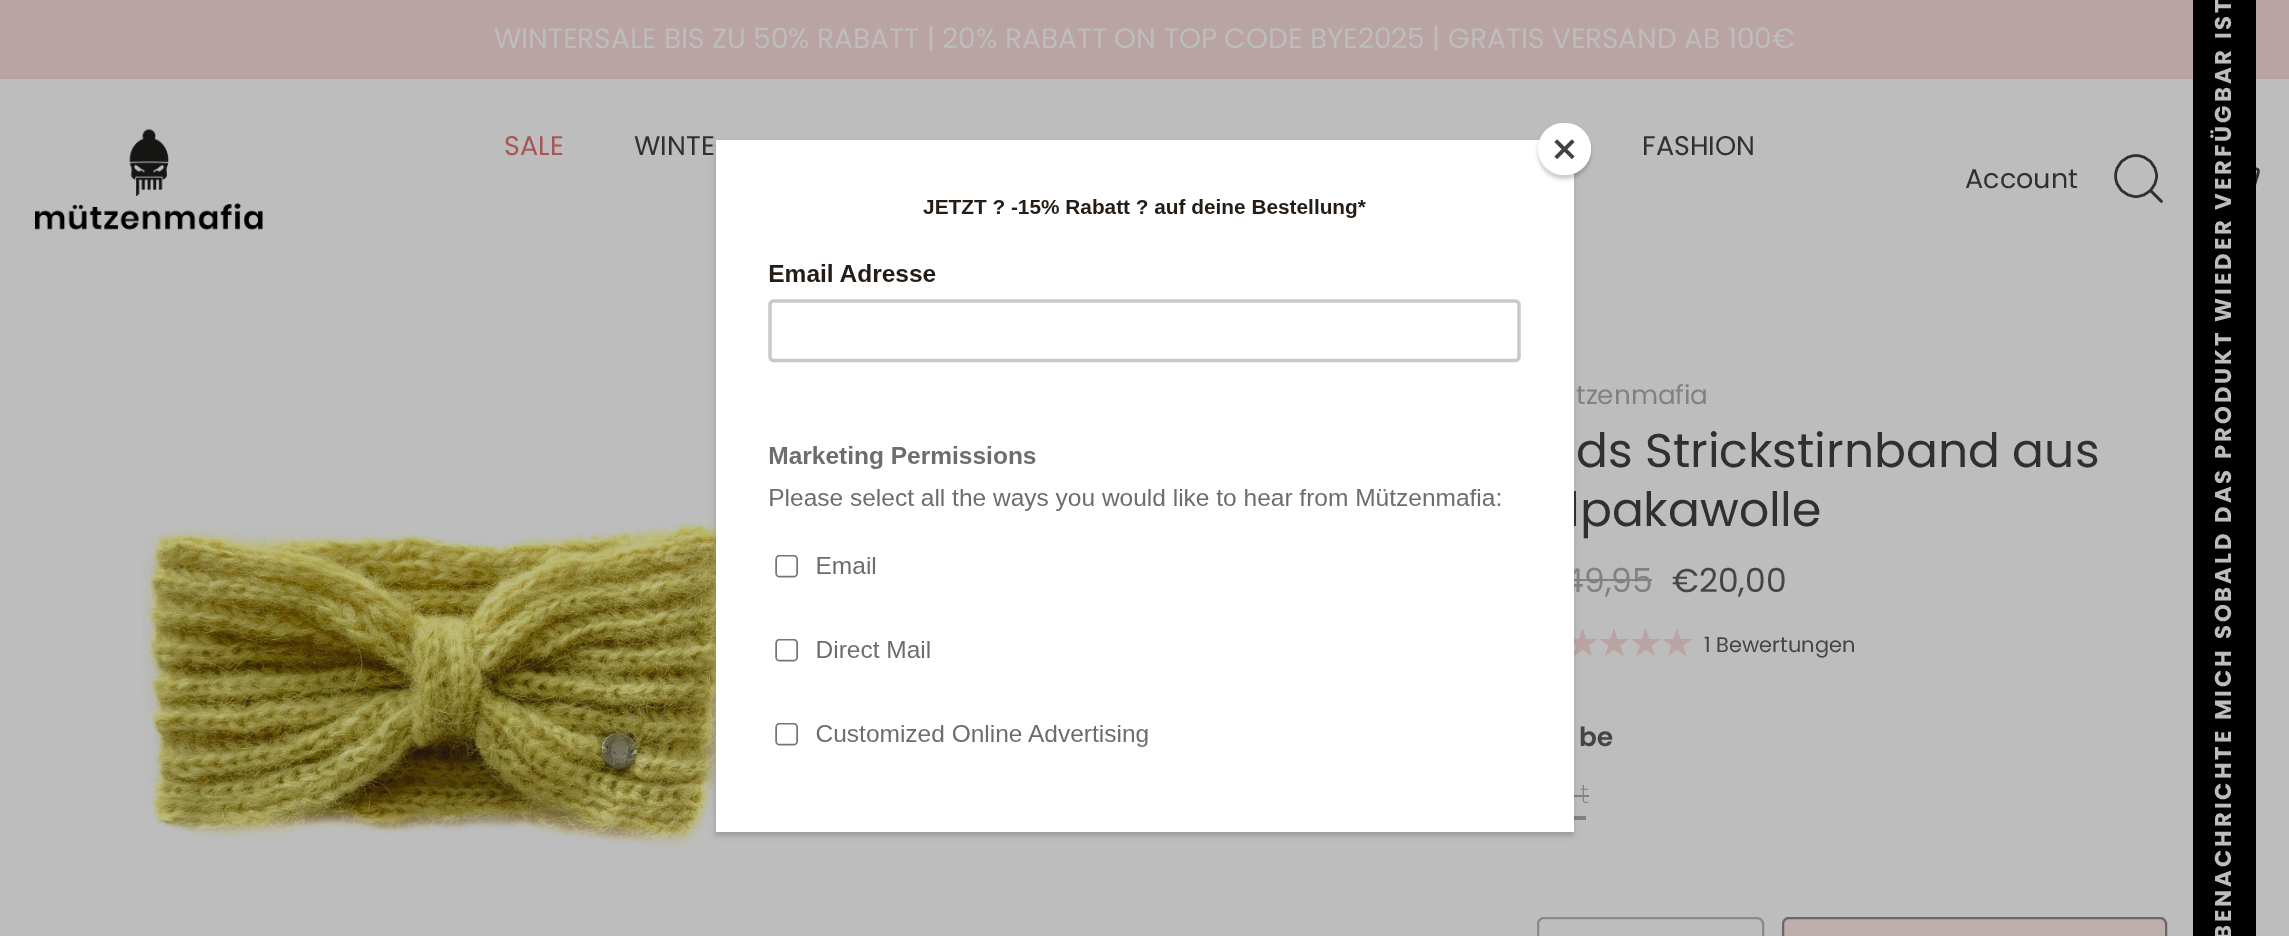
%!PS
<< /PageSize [2289 936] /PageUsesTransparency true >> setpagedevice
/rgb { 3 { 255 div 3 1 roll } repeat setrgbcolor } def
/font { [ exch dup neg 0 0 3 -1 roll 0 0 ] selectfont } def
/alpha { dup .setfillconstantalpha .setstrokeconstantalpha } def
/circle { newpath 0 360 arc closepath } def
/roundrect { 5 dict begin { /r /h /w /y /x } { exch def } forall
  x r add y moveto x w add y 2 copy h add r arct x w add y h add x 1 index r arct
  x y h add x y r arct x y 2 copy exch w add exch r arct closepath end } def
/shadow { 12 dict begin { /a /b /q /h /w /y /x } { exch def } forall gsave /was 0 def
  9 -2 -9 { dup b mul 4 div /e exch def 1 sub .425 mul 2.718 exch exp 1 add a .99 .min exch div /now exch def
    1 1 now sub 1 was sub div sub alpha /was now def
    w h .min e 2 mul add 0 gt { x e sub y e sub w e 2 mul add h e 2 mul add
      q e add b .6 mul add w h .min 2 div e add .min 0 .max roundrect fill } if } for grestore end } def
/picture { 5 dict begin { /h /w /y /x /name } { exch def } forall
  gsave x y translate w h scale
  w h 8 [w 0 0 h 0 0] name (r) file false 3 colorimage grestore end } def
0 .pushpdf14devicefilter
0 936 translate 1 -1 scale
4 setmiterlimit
189 189 189 rgb
0 0 2289 936 rectfill
186 164 163 rgb
0 0 2289 79 rectfill
(img/1.rgb) 35 129 228 101 picture
49 47 47 rgb
2.5 setlinewidth
2136 176 20.5 circle stroke
1 setlinecap
1 setlinejoin
2161.5 201.5 moveto 2150.5 190.5 lineto stroke
2.6 setlinewidth
0 setlinecap
2207 168.5 moveto 2202.5 168.5 2205 174 2205.5 175.5 curveto 2207.5 183.5 lineto 2212.5 200 2209 199.5 2226 199.5 curveto 2241.5 199.5 lineto 2249.5 199.5 2250.5 199.5 2252.5 191.5 curveto 2255 183.5 lineto 2259 168.5 2262.5 168.5 2247.5 168.5 curveto 2207 168.5 lineto stroke
0 0 0 rgb
2193 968 moveto 2193 -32 lineto 2193 -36 2196 -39 2200 -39 curveto 2249 -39 lineto 2253 -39 2256 -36 2256 -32 curveto 2256 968 lineto 2256 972 2253 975 2249 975 curveto 2200 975 lineto 2196 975 2193 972 2193 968 curveto closepath fill
(img/3.rgb) 142 476 596 374 picture
130 129 129 rgb
1574 579 78 2 rectfill
186 164 163 rgb
1586 639 moveto 1597.5 639 lineto 1588.5 645.5 lineto 1592 656 lineto 1582.5 649.5 lineto 1573.5 656 lineto 1577 645.5 lineto 1568 639 lineto 1579 639 lineto 1582.5 628 lineto closepath 1617.5 639 moveto 1629 639 lineto 1620 645.5 lineto 1623.5 656 lineto 1614 649.5 lineto 1605 656 lineto 1608.5 645.5 lineto 1599.5 639 lineto 1610.5 639 lineto 1614 628 lineto closepath eofill
130 129 129 rgb
1574 795 15 2 rectfill
1574 816 12 4 rectfill
0 0 0 rgb
716 144 857 691 0 3.5 0.2 shadow
186 164 163 rgb
1649 639 moveto 1660.5 639 lineto 1651.5 645.5 lineto 1655 656 lineto 1645.5 649.5 lineto 1636.5 656 lineto 1640 645.5 lineto 1631 639 lineto 1642 639 lineto 1645.5 628 lineto closepath 1680.5 639 moveto 1692 639 lineto 1683 645.5 lineto 1686.5 656 lineto 1677 649.5 lineto 1668 656 lineto 1671.5 645.5 lineto 1662.5 639 lineto 1673.5 639 lineto 1677 628 lineto closepath eofill
138 138 138 rgb
2 setlinewidth
0 setlinejoin
1538 918 225 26 6 roundrect stroke
187 174 173 rgb
1783 918 383 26 6 roundrect gsave fill grestore
105 104 104 rgb
stroke
/Poppins-Regular 28 font
189 189 189 rgb
494 48 moveto (WINTERSALE BIS ZU 50% RABATT | 20% RABATT ON TOP CODE BYE2025 | GRATIS VERSAND AB 100€) show
/Poppins-Regular 27 font
169 85 85 rgb
504 155 moveto (SALE) show
49 47 47 rgb
[
  [(WINTE) 634 155]
  [(FASHION) 1642 155]
  [(Account) 1965 188]
] { aload pop moveto show } forall
/Poppins-Bold 22.75 font
189 189 189 rgb
gsave 2231 940 translate -90 rotate 0 0 moveto 2.95 0 (BENACHRICHTE MICH SOBALD DAS PRODUKT WIEDER VERFÜGBAR IST) ashow grestore
/Poppins-Regular 26.25 font
130 129 129 rgb
1576 404 moveto (tzenmafia) show
/Poppins-Regular 47.25 font
49 47 47 rgb
1576 467 moveto (ds Strickstirnband aus) show
1568 526 moveto (lpakawolle) show
/Poppins-Regular 33 font
130 129 129 rgb
1563 592 moveto (49,95) show
(img/2.rgb) 716 140 858 692 picture
0 0 0 rgb
1538 126 53 53 26.5 2 0.2 shadow
255 255 255 rgb
1538 123 53 52 26 roundrect fill
65 65 65 rgb
1572 139.5 moveto 1574.5 142 lineto 1557 159 lineto 1554.5 156.5 lineto closepath fill
1554.5 142 moveto 1557 139.5 lineto 1574.5 156.5 lineto 1572 159 lineto closepath fill
70 68 68 rgb
1672 592 moveto (€20,00) show
/Poppins-Regular 21 font
1704 652 moveto (1 Bewertungen) show
/Poppins-SemiBold 26.25 font
1579 746 moveto (be) show
/Poppins-Light 26.25 font
130 129 129 rgb
1580 803 moveto (t) show
.poppdf14devicefilter showpage
